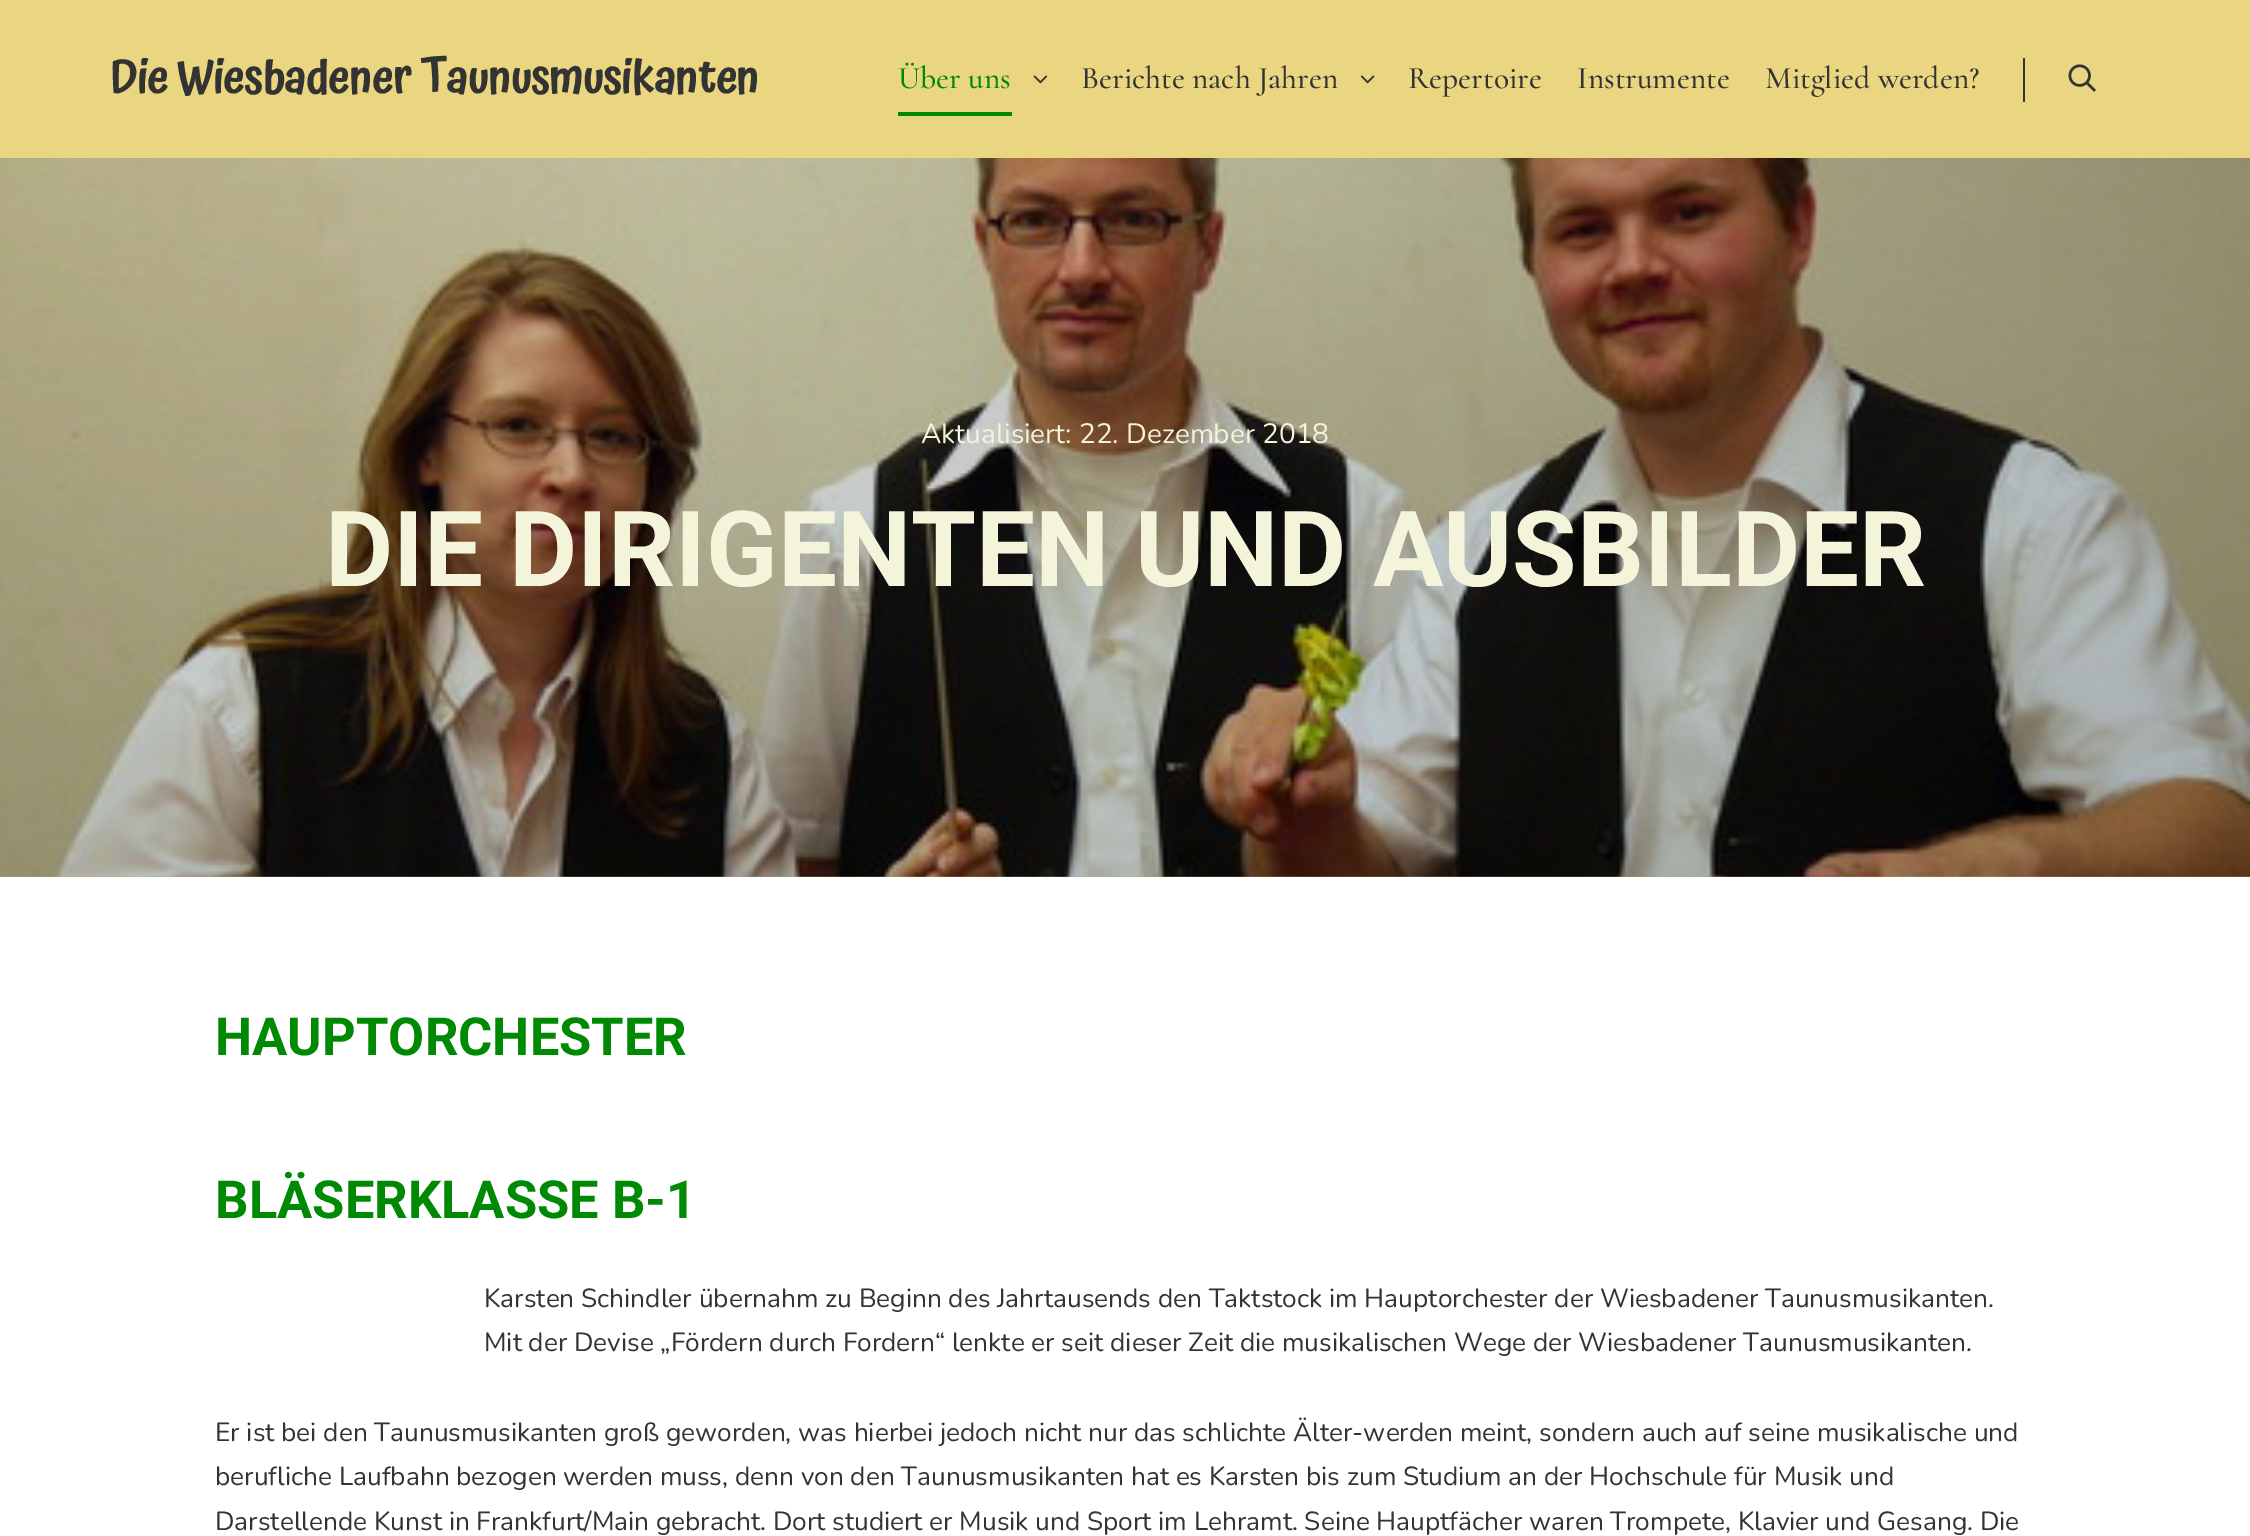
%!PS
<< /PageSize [2250 1536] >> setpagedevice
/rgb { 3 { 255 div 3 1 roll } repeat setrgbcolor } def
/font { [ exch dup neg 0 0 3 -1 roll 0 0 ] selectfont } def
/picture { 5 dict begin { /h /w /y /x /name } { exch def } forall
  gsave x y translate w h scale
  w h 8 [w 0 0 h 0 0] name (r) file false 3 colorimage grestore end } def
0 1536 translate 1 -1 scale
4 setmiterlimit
255 255 255 rgb
0 0 2250 1536 rectfill
234 213 129 rgb
0 0 2250 158 rectfill
0 137 2 rgb
898 112 114 4 rectfill
(img/1.rgb) 1033 75 15 9 picture
(img/2.rgb) 1360 75 15 9 picture
51 51 51 rgb
2023 58 2 44 rectfill
(img/3.rgb) 2068 64 28 28 picture
(img/4.rgb) 0 158 2250 719 picture
/Atma-Bold 45.5 font
110 93 moveto (Die Wiesbadener Taunusmusikanten) show
/Cormorant-Light 31.5 font
0 137 2 rgb
898 88 moveto (Über uns) show
51 51 51 rgb
[
  [(Berichte nach Jahren) 1081 88]
  [(Repertoire) 1408 88]
  [(Instrumente) 1577 88]
  [(Mitglied werden?) 1765 88]
] { aload pop moveto show } forall
/Nunito-ExtraLight 28 font
244 244 219 rgb
921 443 moveto (Aktualisiert: 22. Dezember 2018) show
/Roboto-Bold 105 font
325 586 moveto (DIE DIRIGENTEN UND AUSBILDER) show
/Roboto-Bold 52.5 font
0 137 2 rgb
215 1055 moveto (HAUPTORCHESTER) show
215 1218 moveto (BLÄSERKLASSE B-1) show
/Nunito-ExtraLight 26.25 font
51 51 51 rgb
[
  [(Karsten Schindler übernahm zu Beginn des Jahrtausends den Taktstock im Hauptorchester der Wiesbadener Taunusmusikanten.) 484 1307]
  [(Mit der Devise „Fördern durch Fordern“ lenkte er seit dieser Zeit die musikalischen Wege der Wiesbadener Taunusmusikanten.) 484 1351]
  [(Er ist bei den Taunusmusikanten groß geworden, was hierbei jedoch nicht nur das schlichte Älter-werden meint, sondern auch auf seine musikalische und) 215 1441]
  [(berufliche Laufbahn bezogen werden muss, denn von den Taunusmusikanten hat es Karsten bis zum Studium an der Hochschule für Musik und) 215 1485]
  [(Darstellende Kunst in Frankfurt/Main gebracht. Dort studiert er Musik und Sport im Lehramt. Seine Hauptfächer waren Trompete, Klavier und Gesang. Die) 215 1530]
] { aload pop moveto show } forall
showpage
